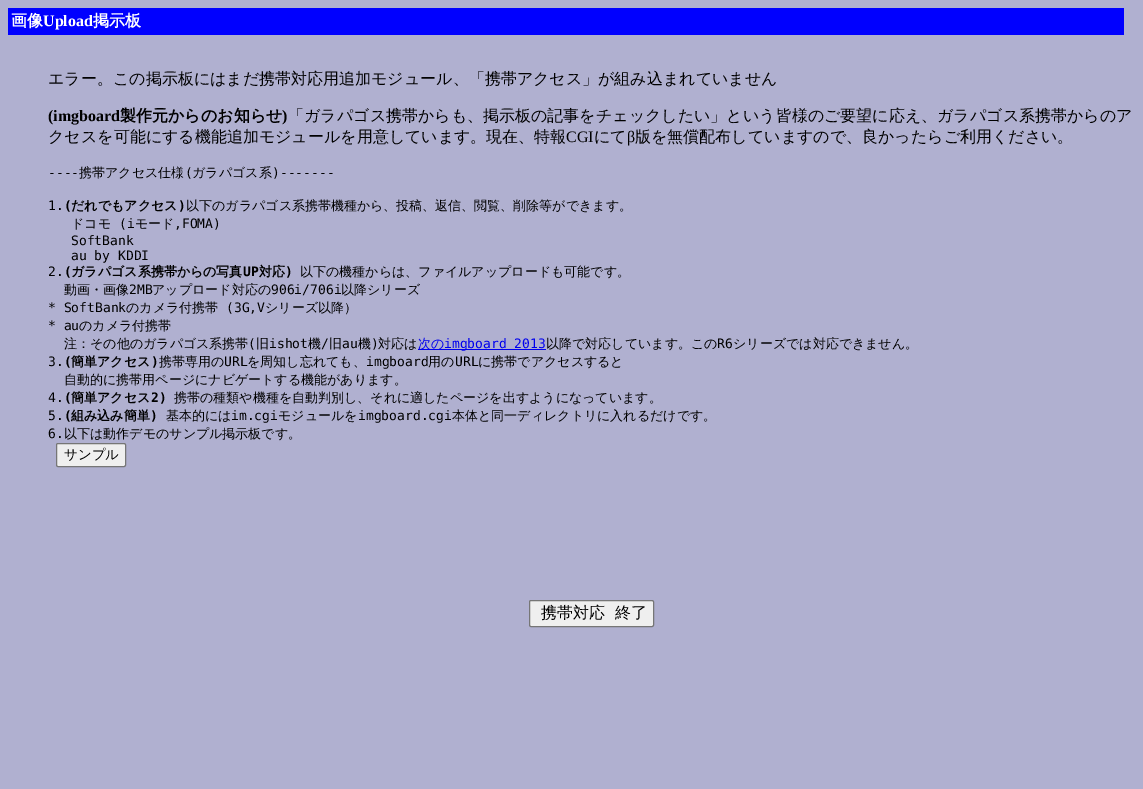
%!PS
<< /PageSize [1143 789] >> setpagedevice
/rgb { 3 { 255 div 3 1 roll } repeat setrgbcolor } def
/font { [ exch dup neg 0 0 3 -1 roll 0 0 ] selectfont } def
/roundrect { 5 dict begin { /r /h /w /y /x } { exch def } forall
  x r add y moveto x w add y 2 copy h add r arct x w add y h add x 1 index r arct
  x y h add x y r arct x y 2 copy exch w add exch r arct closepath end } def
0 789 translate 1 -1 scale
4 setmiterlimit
176 176 208 rgb
0 0 1143 789 rectfill
0 0 255 rgb
8 8 1116 27 rectfill
0 0 238 rgb
418 349 128 1 rectfill
239 239 239 rgb
56.5 443.5 69 23 1.5 roundrect gsave fill grestore
118 118 118 rgb
stroke
239 239 239 rgb
529.5 600.5 124 26 1.5 roundrect gsave fill grestore
118 118 118 rgb
stroke
/WenQuanYiZenHei-Bold 16 font
255 255 255 rgb
11 26 moveto (画像) show
/LiberationSerif-Bold 16 font
43 26 moveto (Upload) show
/WenQuanYiZenHei-Bold 16 font
93 26 moveto (掲示板) show
/WenQuanYiZenHei-Medium 16 font
0 0 0 rgb
48 84 moveto (エラー。この掲示板にはまだ携帯対応用追加モジュール、「携帯アクセス」が組み込まれていません) show
/LiberationSerif-Bold 16 font
48 121 moveto (\(imgboard) show
/WenQuanYiZenHei-Bold 16 font
120 121 moveto (製作元からのお知らせ) show
/LiberationSerif-Bold 16 font
282 121 moveto (\)) show
/WenQuanYiZenHei-Medium 16 font
288 121 moveto (「ガラパゴス携帯からも、掲示板の記事をチェックしたい」という皆様のご要望に応え、ガラパゴス系携帯からのア) show
48 142 moveto (クセスを可能にする機能追加モジュールを用意しています。現在、特報) show
/LiberationSerif-Regular 16 font
566 142 moveto (CGI) show
/WenQuanYiZenHei-Medium 16 font
594 142 moveto (にて) show
/LiberationSerif-Regular 16 font
627 142 moveto (β) show
/WenQuanYiZenHei-Medium 16 font
635 142 moveto (版を無償配布していますので、良かったらご利用ください。) show
/DejaVuSansMono-Regular 13 font
48 177 moveto (----) show
/WenQuanYiZenHei-Medium 13 font
79 177 moveto (携帯アクセス仕様) show
/DejaVuSansMono-Regular 13 font
185 177 moveto (\() show
/WenQuanYiZenHei-Medium 13 font
192 177 moveto (ガラパゴス系) show
/DejaVuSansMono-Regular 13 font
272 177 moveto (\)-------) show
48 210 moveto (1.) show
/DejaVuSansMono-Bold 13 font
64 210 moveto (\() show
/WenQuanYiZenHei-Bold 13 font
71 210 moveto (だれでもアクセス) show
/DejaVuSansMono-Bold 13 font
178 210 moveto (\)) show
/WenQuanYiZenHei-Medium 13 font
186 210 moveto (以下のガラパゴス系携帯機種から、投稿、返信、閲覧、削除等ができます。) show
71 228 moveto (ドコモ) show
/DejaVuSansMono-Regular 13 font
119 228 moveto (\(i) show
/WenQuanYiZenHei-Medium 13 font
135 228 moveto (モード) show
/DejaVuSansMono-Regular 13 font
[
  [(,FOMA\)) 174 228]
  [(SoftBank) 71 245]
  [(au by KDDI) 71 260]
  [(2.) 48 276]
] { aload pop moveto show } forall
/DejaVuSansMono-Bold 13 font
64 276 moveto (\() show
/WenQuanYiZenHei-Bold 13 font
71 276 moveto (ガラパゴス系携帯からの写真) show
/DejaVuSansMono-Bold 13 font
243 276 moveto (UP) show
/WenQuanYiZenHei-Bold 13 font
259 276 moveto (対応) show
/DejaVuSansMono-Bold 13 font
285 276 moveto (\)) show
/WenQuanYiZenHei-Medium 13 font
300 276 moveto (以下の機種からは、ファイルアップロードも可能です。) show
64 294 moveto (動画・画像) show
/DejaVuSansMono-Regular 13 font
129 294 moveto (2MB) show
/WenQuanYiZenHei-Medium 13 font
152 294 moveto (アップロード対応の) show
/DejaVuSansMono-Regular 13 font
271 294 moveto (906i/706i) show
/WenQuanYiZenHei-Medium 13 font
341 294 moveto (以降シリーズ) show
/DejaVuSansMono-Regular 13 font
48 312 moveto (* SoftBank) show
/WenQuanYiZenHei-Medium 13 font
126 312 moveto (のカメラ付携帯) show
/DejaVuSansMono-Regular 13 font
226 312 moveto (\(3G,V) show
/WenQuanYiZenHei-Medium 13 font
265 312 moveto (シリーズ以降）) show
/DejaVuSansMono-Regular 13 font
48 330 moveto (* au) show
/WenQuanYiZenHei-Medium 13 font
79 330 moveto (のカメラ付携帯) show
64 348 moveto (注：その他のガラパゴス系携帯) show
/DejaVuSansMono-Regular 13 font
248 348 moveto (\() show
/WenQuanYiZenHei-Medium 13 font
256 348 moveto (旧) show
/DejaVuSansMono-Regular 13 font
269 348 moveto (ishot) show
/WenQuanYiZenHei-Medium 13 font
308 348 moveto (機) show
/DejaVuSansMono-Regular 13 font
321 348 moveto (/) show
/WenQuanYiZenHei-Medium 13 font
329 348 moveto (旧) show
/DejaVuSansMono-Regular 13 font
342 348 moveto (au) show
/WenQuanYiZenHei-Medium 13 font
358 348 moveto (機) show
/DejaVuSansMono-Regular 13 font
371 348 moveto (\)) show
/WenQuanYiZenHei-Medium 13 font
378 348 moveto (対応は) show
0 0 238 rgb
418 348 moveto (次の) show
/DejaVuSansMono-Regular 13 font
444 348 moveto (imgboard 2013) show
/WenQuanYiZenHei-Medium 13 font
0 0 0 rgb
546 348 moveto (以降で対応しています。この) show
/DejaVuSansMono-Regular 13 font
717 348 moveto (R6) show
/WenQuanYiZenHei-Medium 13 font
733 348 moveto (シリーズでは対応できません。) show
/DejaVuSansMono-Regular 13 font
48 366 moveto (3.) show
/DejaVuSansMono-Bold 13 font
64 366 moveto (\() show
/WenQuanYiZenHei-Bold 13 font
71 366 moveto (簡単アクセス) show
/DejaVuSansMono-Bold 13 font
151 366 moveto (\)) show
/WenQuanYiZenHei-Medium 13 font
159 366 moveto (携帯専用の) show
/DejaVuSansMono-Regular 13 font
224 366 moveto (URL) show
/WenQuanYiZenHei-Medium 13 font
247 366 moveto (を周知し忘れても、) show
/DejaVuSansMono-Regular 13 font
366 366 moveto (imgboard) show
/WenQuanYiZenHei-Medium 13 font
428 366 moveto (用の) show
/DejaVuSansMono-Regular 13 font
455 366 moveto (URL) show
/WenQuanYiZenHei-Medium 13 font
478 366 moveto (に携帯でアクセスすると) show
64 384 moveto (自動的に携帯用ページにナビゲートする機能があります。) show
/DejaVuSansMono-Regular 13 font
48 402 moveto (4.) show
/DejaVuSansMono-Bold 13 font
64 402 moveto (\() show
/WenQuanYiZenHei-Bold 13 font
71 402 moveto (簡単アクセス) show
/DejaVuSansMono-Bold 13 font
151 402 moveto (2\)) show
/WenQuanYiZenHei-Medium 13 font
174 402 moveto (携帯の種類や機種を自動判別し、それに適したページを出すようになっています。) show
/DejaVuSansMono-Regular 13 font
48 420 moveto (5.) show
/DejaVuSansMono-Bold 13 font
64 420 moveto (\() show
/WenQuanYiZenHei-Bold 13 font
71 420 moveto (組み込み簡単) show
/DejaVuSansMono-Bold 13 font
150 420 moveto (\)) show
/WenQuanYiZenHei-Medium 13 font
166 420 moveto (基本的には) show
/DejaVuSansMono-Regular 13 font
231 420 moveto (im.cgi) show
/WenQuanYiZenHei-Medium 13 font
278 420 moveto (モジュールを) show
/DejaVuSansMono-Regular 13 font
358 420 moveto (imgboard.cgi) show
/WenQuanYiZenHei-Medium 13 font
452 420 moveto (本体と同一ディレクトリに入れるだけです。) show
/DejaVuSansMono-Regular 13 font
48 438 moveto (6.) show
/WenQuanYiZenHei-Medium 13 font
64 438 moveto (以下は動作デモのサンプル掲示板です。) show
/WenQuanYiZenHei-Medium 13.5 font
64 459 moveto (サンプル) show
/WenQuanYiZenHei-Medium 16 font
541 618 moveto (携帯対応  終了) show
showpage
